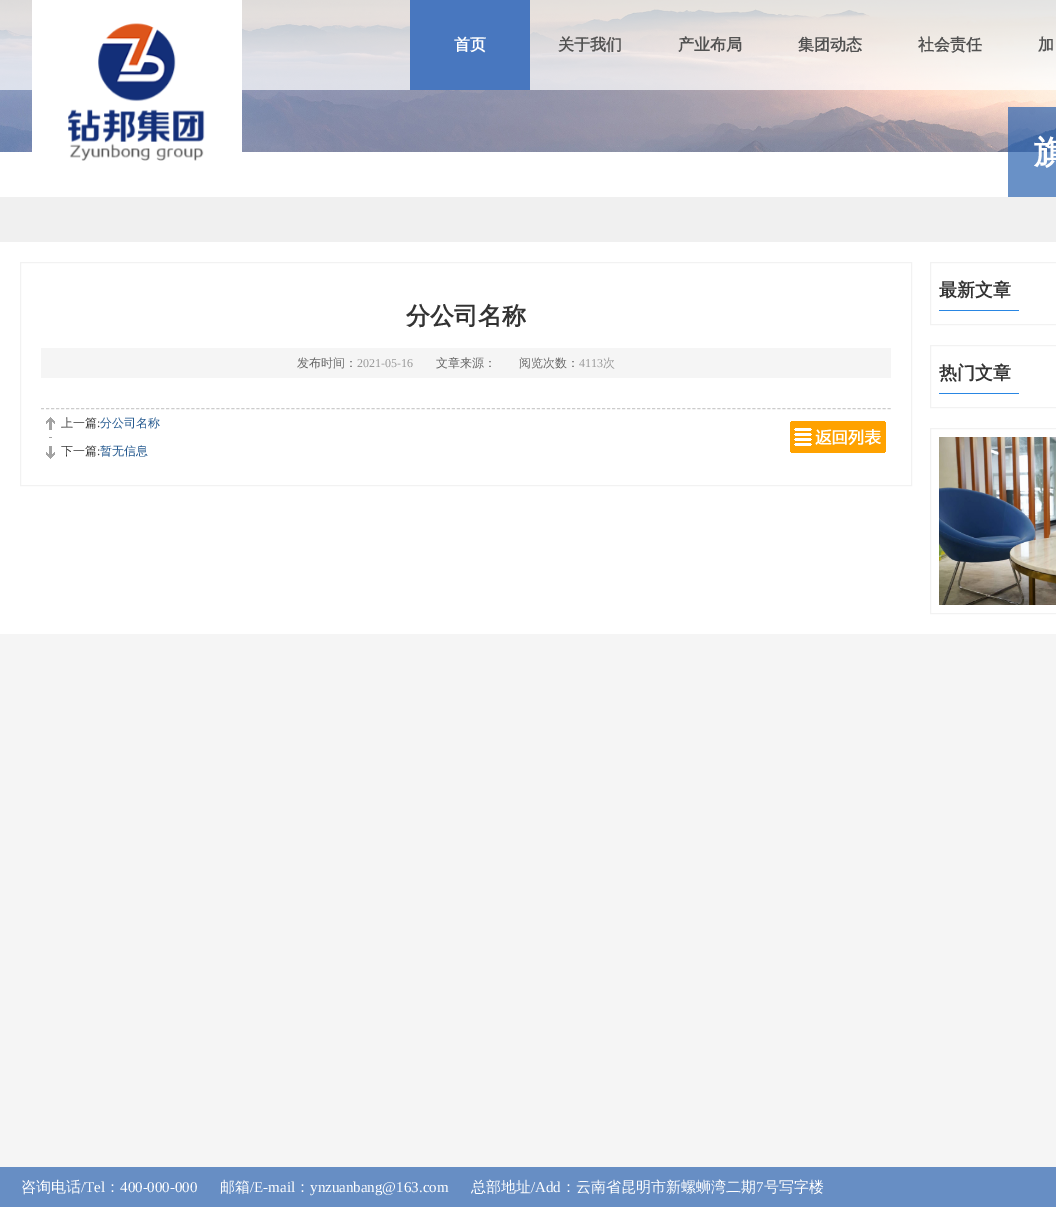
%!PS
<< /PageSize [1056 1207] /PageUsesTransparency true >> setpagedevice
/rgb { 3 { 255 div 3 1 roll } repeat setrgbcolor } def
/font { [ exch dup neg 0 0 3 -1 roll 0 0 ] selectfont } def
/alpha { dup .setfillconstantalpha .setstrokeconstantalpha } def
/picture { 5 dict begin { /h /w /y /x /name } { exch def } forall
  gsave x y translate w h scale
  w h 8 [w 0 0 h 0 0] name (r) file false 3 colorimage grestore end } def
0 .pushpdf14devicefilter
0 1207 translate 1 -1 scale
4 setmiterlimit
245 245 245 rgb
0 0 1056 1207 rectfill
(img/1.rgb) 0 0 1056 152 picture
0.7 alpha
[
  [0 0 1056 90 255 255 255]
] { aload pop rgb rectfill } forall
1 alpha
[
  [32 0 210 152 255 255 255]
  [0 152 1056 45 255 255 255]
] { aload pop rgb rectfill } forall
(img/2.rgb) 68 23 137 138 picture
[
  [410 0 120 90 72 119 191]
] { aload pop rgb rectfill } forall
0.7 alpha
[
  [1008 107 48 90 42 98 175]
] { aload pop rgb rectfill } forall
1 alpha
[
  [0 197 1056 45 240 240 240]
  [0 242 1056 392 255 255 255]
] { aload pop rgb rectfill } forall
242 242 242 rgb
20.5 262.5 891 223 rectstroke
245 245 245 rgb
41 348 850 30 rectfill
204 204 204 rgb
[3 2.01] 0 setdash
41 408.5 moveto 891 408.5 lineto stroke
(img/3.rgb) 46 417 9 13 picture
(img/4.rgb) 46 437 9 22 picture
(img/5.rgb) 790 421 96 32 picture
242 242 242 rgb
[] 0 setdash
930.5 262.5 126 62 rectstroke
41 134 227 rgb
939 310 80 1 rectfill
242 242 242 rgb
930.5 345.5 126 62 rectstroke
41 134 227 rgb
939 393 80 1 rectfill
242 242 242 rgb
930.5 428.5 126 185 rectstroke
(img/6.rgb) 939 437 117 168 picture
103 142 196 rgb
0 1167 1056 40 rectfill
/WenQuanYiZenHei-Bold 16 font
255 255 255 rgb
454 50 moveto (首页) show
82 82 82 rgb
[
  [(关于我们) 558 50]
  [(产业布局) 678 50]
  [(集团动态) 798 50]
  [(社会责任) 918 50]
  [(加) 1038 50]
] { aload pop moveto show } forall
/WenQuanYiZenHei-Bold 32 font
255 255 255 rgb
1034 163 moveto (旗) show
/WenQuanYiZenHei-Bold 24 font
51 51 51 rgb
406 324 moveto (分公司名称) show
/WenQuanYiZenHei-Medium 12 font
102 102 102 rgb
297 367 moveto (发布时间：) show
/LiberationSerif-Regular 12 font
153 153 153 rgb
357 367 moveto (2021-05-16) show
/WenQuanYiZenHei-Medium 12 font
102 102 102 rgb
436 367 moveto (文章来源：) show
519 367 moveto (阅览次数：) show
/LiberationSerif-Regular 12 font
153 153 153 rgb
579 367 moveto (4113) show
/WenQuanYiZenHei-Medium 12 font
603 367 moveto (次) show
51 51 51 rgb
61 427 moveto (上一篇) show
/LiberationSerif-Regular 12 font
97 427 moveto (:) show
/WenQuanYiZenHei-Medium 12 font
36 89 143 rgb
100 427 moveto (分公司名称) show
51 51 51 rgb
61 455 moveto (下一篇) show
/LiberationSerif-Regular 12 font
97 455 moveto (:) show
/WenQuanYiZenHei-Medium 12 font
36 89 143 rgb
100 455 moveto (暂无信息) show
/WenQuanYiZenHei-Bold 18 font
51 51 51 rgb
939 296 moveto (最新文章) show
939 379 moveto (热门文章) show
/WenQuanYiZenHei-Medium 15 font
255 255 255 rgb
21 1192 moveto (咨询电话) show
/LiberationSerif-Regular 15 font
81 1192 moveto (/Tel) show
/WenQuanYiZenHei-Medium 15 font
105 1192 moveto (：) show
/LiberationSerif-Regular 15 font
120 1192 moveto (400-000-000) show
/WenQuanYiZenHei-Medium 15 font
220 1192 moveto (邮箱) show
/LiberationSerif-Regular 15 font
250 1192 moveto (/E-mail) show
/WenQuanYiZenHei-Medium 15 font
295 1192 moveto (：) show
/LiberationSerif-Regular 15 font
310 1192 moveto (ynzuanbang@163.com) show
/WenQuanYiZenHei-Medium 15 font
471 1192 moveto (总部地址) show
/LiberationSerif-Regular 15 font
531 1192 moveto (/Add) show
/WenQuanYiZenHei-Medium 15 font
561 1192 moveto (：云南省昆明市新螺蛳湾二期) show
/LiberationSerif-Regular 15 font
756 1192 moveto (7) show
/WenQuanYiZenHei-Medium 15 font
764 1192 moveto (号写字楼) show
.poppdf14devicefilter showpage
